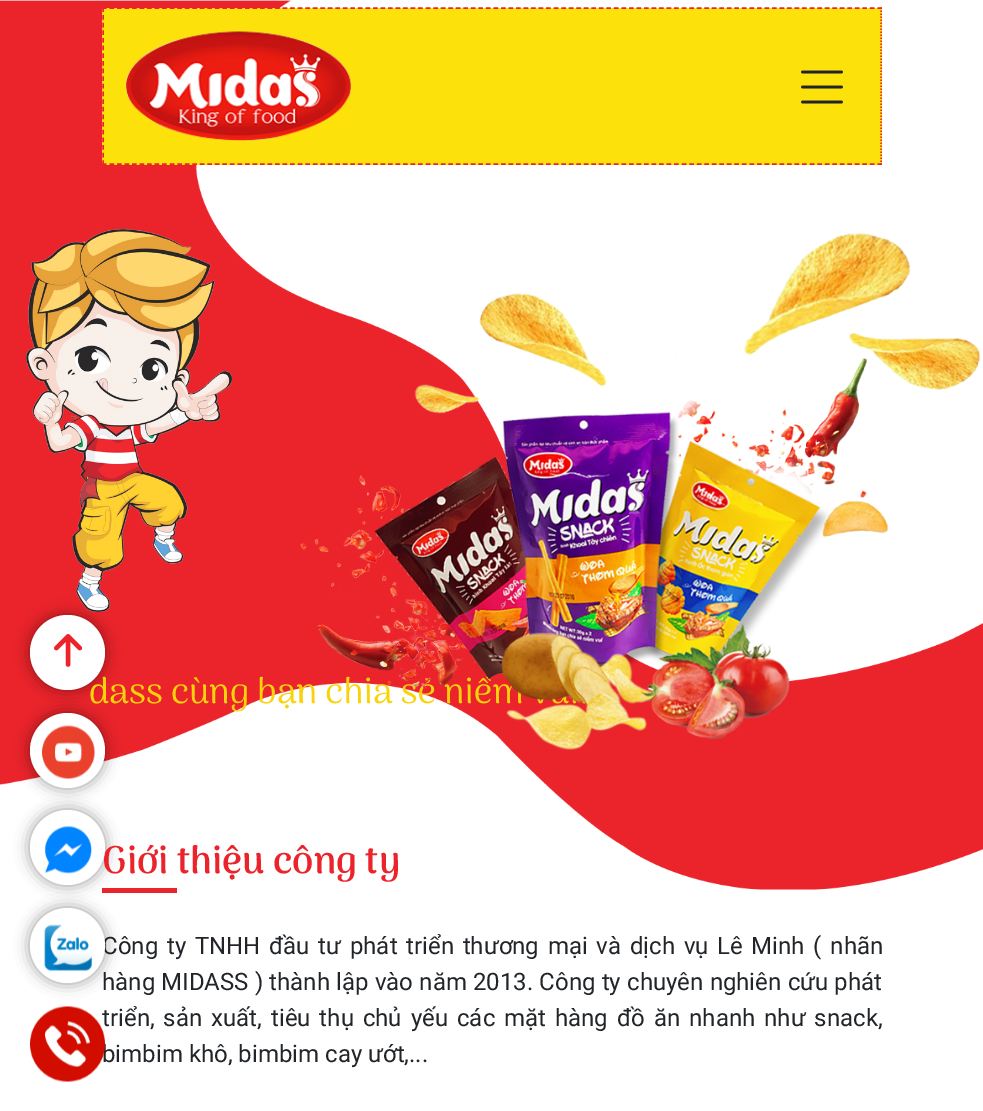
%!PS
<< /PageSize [983 1111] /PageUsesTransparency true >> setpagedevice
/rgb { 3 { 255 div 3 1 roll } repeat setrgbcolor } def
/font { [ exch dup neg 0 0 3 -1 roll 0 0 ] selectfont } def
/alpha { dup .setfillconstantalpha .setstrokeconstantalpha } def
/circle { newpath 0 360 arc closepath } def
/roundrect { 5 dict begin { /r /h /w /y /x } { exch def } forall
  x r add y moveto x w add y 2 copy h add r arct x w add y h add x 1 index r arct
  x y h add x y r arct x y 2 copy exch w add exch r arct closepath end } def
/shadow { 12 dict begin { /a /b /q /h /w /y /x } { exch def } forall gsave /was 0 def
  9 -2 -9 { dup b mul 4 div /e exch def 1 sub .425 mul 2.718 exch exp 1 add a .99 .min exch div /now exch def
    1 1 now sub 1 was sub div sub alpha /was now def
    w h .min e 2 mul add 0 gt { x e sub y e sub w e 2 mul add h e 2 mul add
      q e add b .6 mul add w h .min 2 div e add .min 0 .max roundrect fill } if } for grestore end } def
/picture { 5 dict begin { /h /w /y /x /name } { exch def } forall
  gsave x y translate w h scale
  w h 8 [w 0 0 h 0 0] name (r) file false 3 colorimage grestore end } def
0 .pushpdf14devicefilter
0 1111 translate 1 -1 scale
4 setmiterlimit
255 255 255 rgb
0 0 983 1111 rectfill
(img/6.rgb) 0 0 983 890 picture
0 0 0 rgb
30 615 75 75 37.5 7.5 0.4 shadow
253 225 11 rgb
102 8 780 157 rectfill
235 35 43 rgb
1.5 setlinewidth
[4.5 3.03] 0 setdash
102 8 moveto 882 8 lineto stroke
[1.5 1.5] 0 setdash
881 7.5 moveto 881 165 lineto stroke
[4.5 3.03] 0 setdash
102 164 moveto 882 164 lineto stroke
[4.5 3.15] 0 setdash
103 7.5 moveto 103 165 lineto stroke
(img/7.rgb) 126 31 225 110 picture
(img/8.rgb) 801 70 42 34 picture
(img/9.rgb) 26 229 206 383 picture
102 888 75 5 rectfill
/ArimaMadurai-Regular 36 font
248 211 11 rgb
89 703 moveto (dass cùng bạn chia sẻ niề) show
255 255 255 rgb
67.5 652.5 37.5 circle fill
0 0 0 rgb
30 713 75 75 37.5 7.5 0.4 shadow
255 255 255 rgb
67.5 750.5 37.5 circle fill
0 0 0 rgb
30 810 75 75 37.5 7.5 0.4 shadow
(img/2.rgb) 42 725 53 54 picture
(img/1.rgb) 54 634 29 33 picture
(img/10.rgb) 300 232 681 518 picture
/ArimaMadurai-Bold 38.5 font
235 35 43 rgb
102 873 moveto (Giới thiệu công ty) show
255 255 255 rgb
67.5 847.5 37.5 circle fill
0 0 0 rgb
30 908 75 75 37.5 7.5 0.4 shadow
(img/3.rgb) 44 825 48 49 picture
/Roboto-Regular 24 font
33 37 41 rgb
102 954 moveto 2.75 0 32 (Công ty TNHH đầu tư phát triển thương mại và dịch vụ Lê Minh \( nhãn) widthshow
102 990 moveto 0.25 0 32 (hàng MIDASS \) thành lập vào năm 2013. Công ty chuyên nghiên cứu phát) widthshow
255 255 255 rgb
67.5 945.5 37.5 circle fill
(img/4.rgb) 44 924 48 47 picture
33 37 41 rgb
102 1026 moveto 3 0 32 (triển, sản xuất, tiêu thụ chủ yếu các mặt hàng đồ ăn nhanh như snack,) widthshow
102 1062 moveto (bimbim khô, bimbim cay ướt,...) show
(img/5.rgb) 30 1006 75 76 picture
.poppdf14devicefilter showpage
